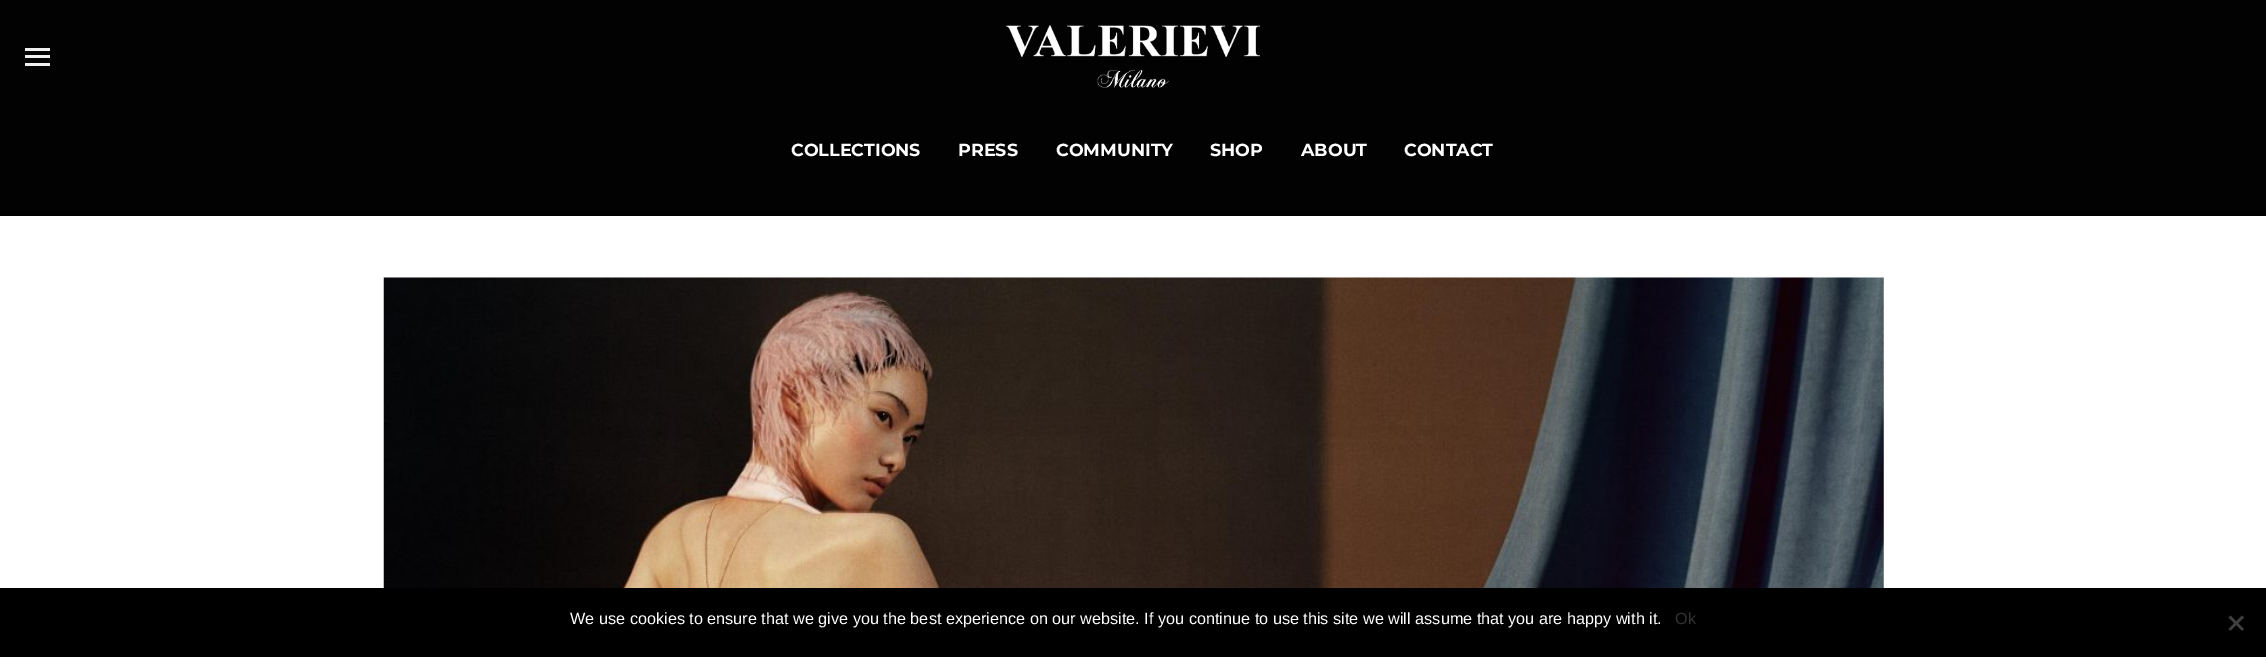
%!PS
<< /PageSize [2266 657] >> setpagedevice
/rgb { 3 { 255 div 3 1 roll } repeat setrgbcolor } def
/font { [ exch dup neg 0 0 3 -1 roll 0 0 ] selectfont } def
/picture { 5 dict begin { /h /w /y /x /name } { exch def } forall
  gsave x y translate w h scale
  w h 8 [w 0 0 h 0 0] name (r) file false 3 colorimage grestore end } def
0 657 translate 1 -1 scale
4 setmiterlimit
255 255 255 rgb
0 0 2266 657 rectfill
[
  [0 213 2266 3 0 0 0]
  [0 0 2266 213 2 2 2]
  [25 55 25 3 239 239 239]
  [25 48 25 3 239 239 239]
  [25 63 25 3 239 239 239]
] { aload pop rgb rectfill } forall
(img/1.rgb) 1006 25 254 63 picture
(img/2.rgb) 383 277 1501 311 picture
0 0 0 rgb
0 588 2266 69 rectfill
64 64 64 rgb
2242 615.5 moveto 2244 617.5 lineto 2230.5 630.5 lineto 2228.5 629 lineto closepath fill
2228.5 617.5 moveto 2230.5 615.5 lineto 2244 629 lineto 2242 630.5 lineto closepath fill
/Montserrat-Bold 17.5 font
255 255 255 rgb
[
  [(COLLECTIONS) 791 156]
  [(PRESS) 958 156]
  [(COMMUNITY) 1056 156]
  [(SHOP) 1210 156]
  [(ABOUT) 1301 156]
  [(CONTACT) 1404 156]
] { aload pop moveto show } forall
/LiberationSans-Regular 16.25 font
570 624 moveto (We use cookies to ensure that we give you the best experience on our website. If you continue to use this site we will assume that you are happy with it.) show
51 51 51 rgb
1675 624 moveto (Ok) show
showpage
